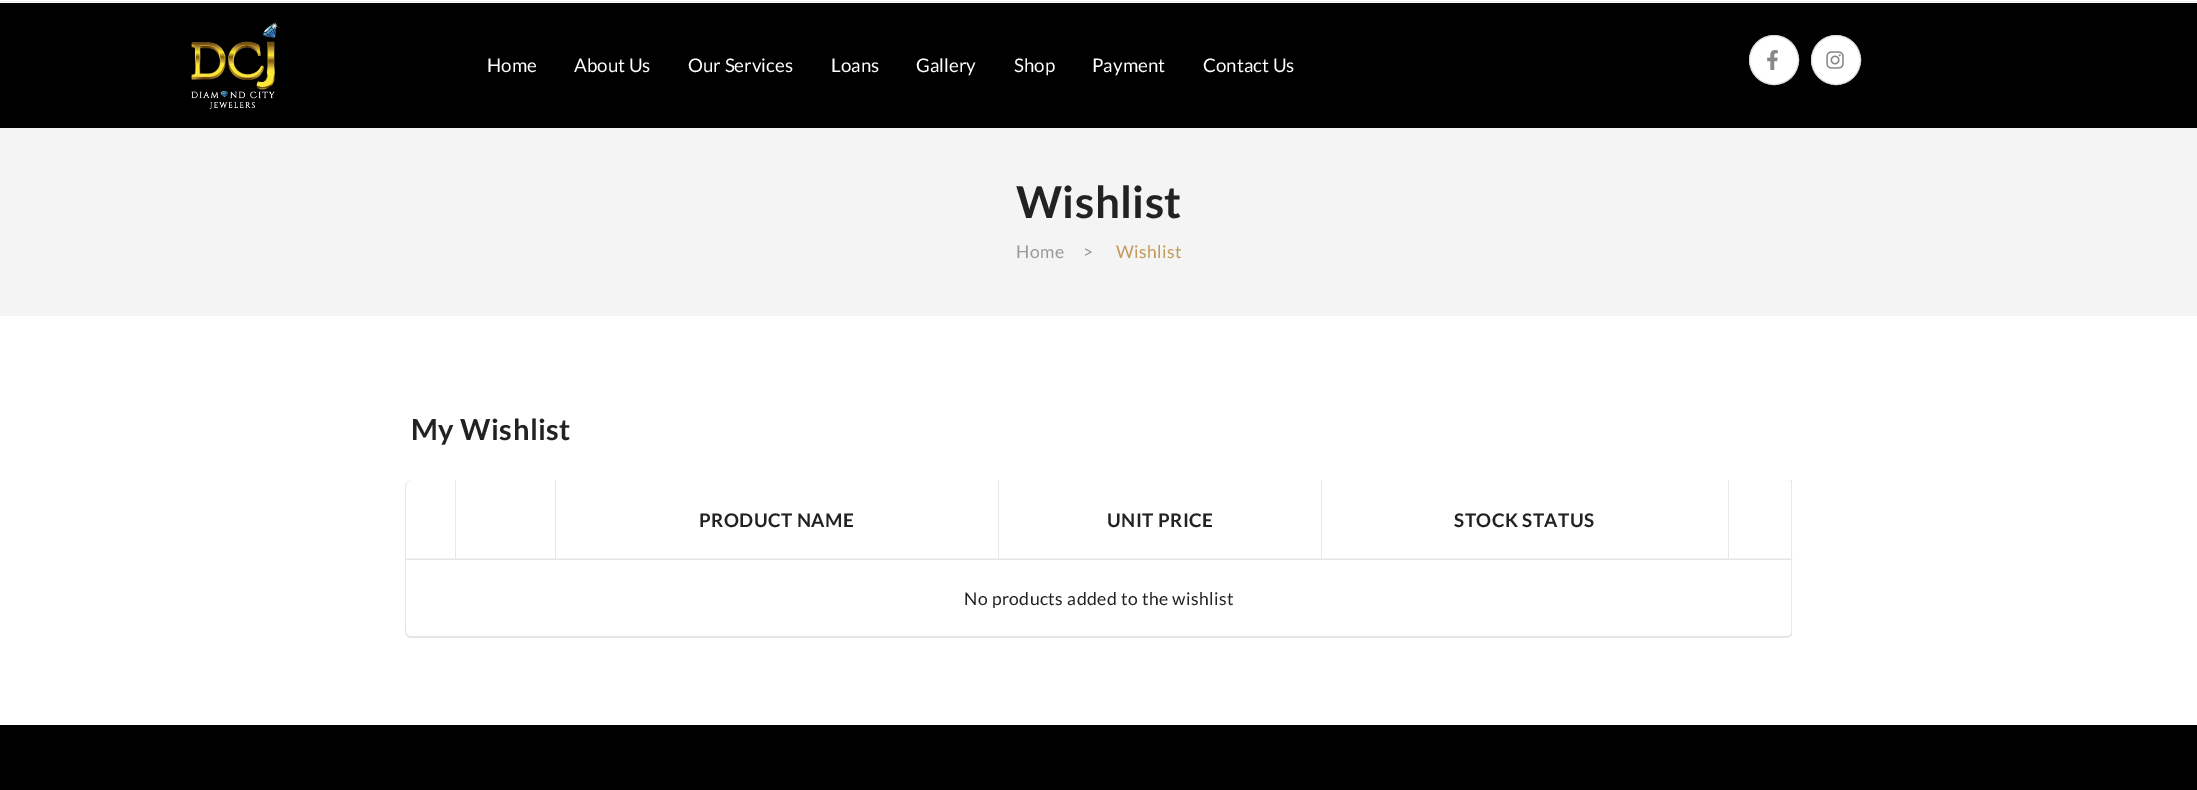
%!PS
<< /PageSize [2197 790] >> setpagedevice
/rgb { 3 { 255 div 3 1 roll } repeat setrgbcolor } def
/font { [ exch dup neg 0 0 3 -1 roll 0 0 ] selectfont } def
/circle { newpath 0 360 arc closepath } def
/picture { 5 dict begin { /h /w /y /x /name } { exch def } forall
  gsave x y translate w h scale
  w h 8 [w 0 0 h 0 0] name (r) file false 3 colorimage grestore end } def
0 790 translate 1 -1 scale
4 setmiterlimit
255 255 255 rgb
0 0 2197 790 rectfill
0 0 0 rgb
0 3 2197 125 rectfill
239 239 239 rgb
0 1 2197 1 rectfill
(img/1.rgb) 191 20 91 90 picture
255 255 255 rgb
1774 60 24.5 circle gsave fill grestore
221 221 221 rgb
stroke
(img/2.rgb) 1767 50 11 20 picture
255 255 255 rgb
1836 60 24.5 circle gsave fill grestore
221 221 221 rgb
stroke
(img/3.rgb) 1826 51 18 18 picture
244 244 244 rgb
0 128 2197 188 rectfill
230 230 230 rgb
411 480 moveto 1786 480 lineto 1790 480 1792 483 1792 486 curveto 1792 631 lineto 1792 635 1790 638 1786 638 curveto 411 638 lineto 408 638 405 635 405 631 curveto 405 486 lineto 405 483 408 480 411 480 curveto closepath 411 480 moveto 1786 480 lineto 1790 480 1792 483 1792 486 curveto 1792 631 lineto 1792 634 1790 636 1786 636 curveto 411 636 lineto 408 636 406 634 406 631 curveto 406 486 lineto 406 483 408 480 411 480 curveto closepath eofill
[
  [406 558 1387 1 239 239 239]
  [455 480 1 79 231 231 231]
  [555 480 1 79 231 231 231]
  [998 480 1 79 231 231 231]
  [1321 480 1 79 231 231 231]
  [1728 480 1 79 231 231 231]
  [1791 480 1 79 231 231 231]
] { aload pop rgb rectfill } forall
230 230 230 rgb
406 559 moveto 1792 559 lineto 1791 560 lineto 406 560 lineto closepath fill
231 231 231 rgb
1792 559 moveto 1792 636 lineto 1791 636 lineto 1791 560 lineto closepath fill
0 0 0 rgb
0 725 2197 65 rectfill
/Lato-Regular 18.75 font
255 255 255 rgb
[
  [(Home) 487 72]
  [(About Us) 574 72]
  [(Our Services) 688 72]
  [(Loans) 831 72]
  [(Gallery) 916 72]
  [(Shop) 1014 72]
  [(Payment) 1092 72]
  [(Contact Us) 1203 72]
] { aload pop moveto show } forall
/Lato-Bold 44 font
34 34 34 rgb
1016 218 moveto 0.45 0 (Wishlist) ashow
/Lato-Regular 17.5 font
153 153 153 rgb
1016 258 moveto 0.45 0 (Home) ashow
1083 258 moveto 0.45 0 (>) ashow
194 153 88 rgb
1116 258 moveto 0.45 0 (Wishlist) ashow
/Lato-Bold 29 font
34 34 34 rgb
411 440 moveto 0.45 0 (My Wishlist) ashow
/Lato-Bold 18.75 font
699 527 moveto 0.45 0 (PRODUCT NAME) ashow
1107 527 moveto 0.45 0 (UNIT PRICE) ashow
1454 527 moveto 0.45 0 (STOCK STATUS) ashow
/Lato-Regular 17.5 font
964 605 moveto 0.45 0 (No products added to the wishlist) ashow
showpage
